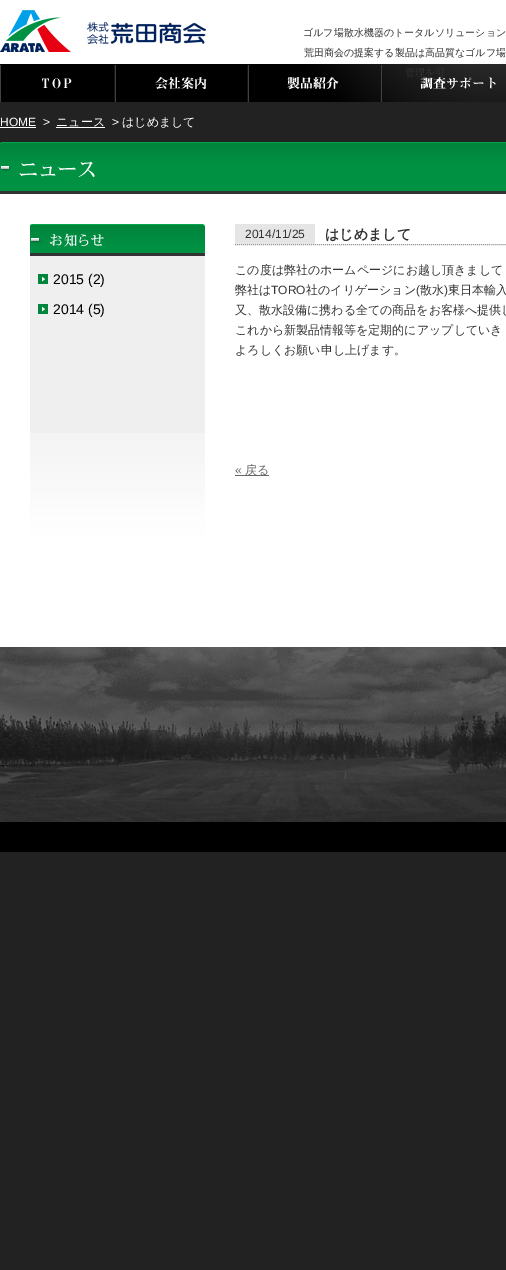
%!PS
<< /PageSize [506 1270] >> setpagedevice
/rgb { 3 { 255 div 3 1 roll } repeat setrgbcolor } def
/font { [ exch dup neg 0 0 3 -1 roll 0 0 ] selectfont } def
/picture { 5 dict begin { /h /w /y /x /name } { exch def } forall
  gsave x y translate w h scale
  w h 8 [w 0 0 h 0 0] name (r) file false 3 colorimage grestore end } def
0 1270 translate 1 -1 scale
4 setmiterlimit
34 34 34 rgb
0 0 506 1270 rectfill
(img/1.rgb) 0 0 506 65 picture
(img/2.rgb) 0 647 506 175 picture
(img/3.rgb) 0 10 206 42 picture
(img/4.rgb) 0 65 115 37 picture
(img/5.rgb) 115 65 133 37 picture
(img/6.rgb) 248 64 133 38 picture
(img/7.rgb) 381 64 125 38 picture
255 255 255 rgb
0 127 36 1 rectfill
56 127 49 1 rectfill
(img/8.rgb) 0 142 506 52 picture
0 194 506 453 rectfill
239 239 239 rgb
30 256 175 177 rectfill
(img/9.rgb) 30 433 175 184 picture
(img/10.rgb) 30 224 175 32 picture
(img/11.rgb) 38 274 10 10 picture
(img/11.rgb) 38 304 10 10 picture
229 229 229 rgb
235 224 80 20 rectfill
153 153 153 rgb
[1 1] 0 setdash
235 244.5 moveto 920 244.5 lineto stroke
102 102 102 rgb
235 475 34 1 rectfill
0 0 0 rgb
0 822 506 30 rectfill
/WenQuanYiZenHei-Medium 10 font
51 51 51 rgb
[
  [(ゴルフ場散水機器のトータルソリューション) 303 36]
  [(荒田商会の提案する製品は高品質なゴルフ場) 304 56]
  [(管理を可) 405 76]
] { aload pop moveto show } forall
/LiberationSans-Regular 12 font
255 255 255 rgb
0 126 moveto (HOME) show
43 126 moveto (>) show
/WenQuanYiZenHei-Medium 12 font
56 126 moveto (ニュース) show
/LiberationSans-Regular 12 font
112 126 moveto (>) show
/WenQuanYiZenHei-Medium 12 font
122 126 moveto (はじめまして) show
/LiberationSans-Regular 14 font
0 0 0 rgb
53 284 moveto (2015 \(2\)) show
53 314 moveto (2014 \(5\)) show
/LiberationSans-Regular 12 font
51 51 51 rgb
245 238 moveto (2014/11/25) show
/WenQuanYiZenHei-Bold 14 font
325 239 moveto (はじめまして) show
/WenQuanYiZenHei-Medium 12 font
235 274 moveto (この度は弊社のホームページにお越し頂きまして) show
235 294 moveto (弊社は) show
/LiberationSans-Regular 12 font
271 294 moveto (TORO) show
/WenQuanYiZenHei-Medium 12 font
306 294 moveto (社のイリゲーション) show
/LiberationSans-Regular 12 font
416 294 moveto (\() show
/WenQuanYiZenHei-Medium 12 font
420 294 moveto (散水) show
/LiberationSans-Regular 12 font
444 294 moveto (\)) show
/WenQuanYiZenHei-Medium 12 font
[
  [(東日本輸入) 448 294]
  [(又、散水設備に携わる全ての商品をお客様へ提供し) 235 314]
  [(これから新製品情報等を定期的にアップしていき) 235 334]
  [(よろしくお願い申し上げます。) 235 354]
] { aload pop moveto show } forall
/LiberationSans-Regular 12 font
102 102 102 rgb
235 474 moveto («) show
/WenQuanYiZenHei-Medium 12 font
245 474 moveto (戻る) show
showpage
